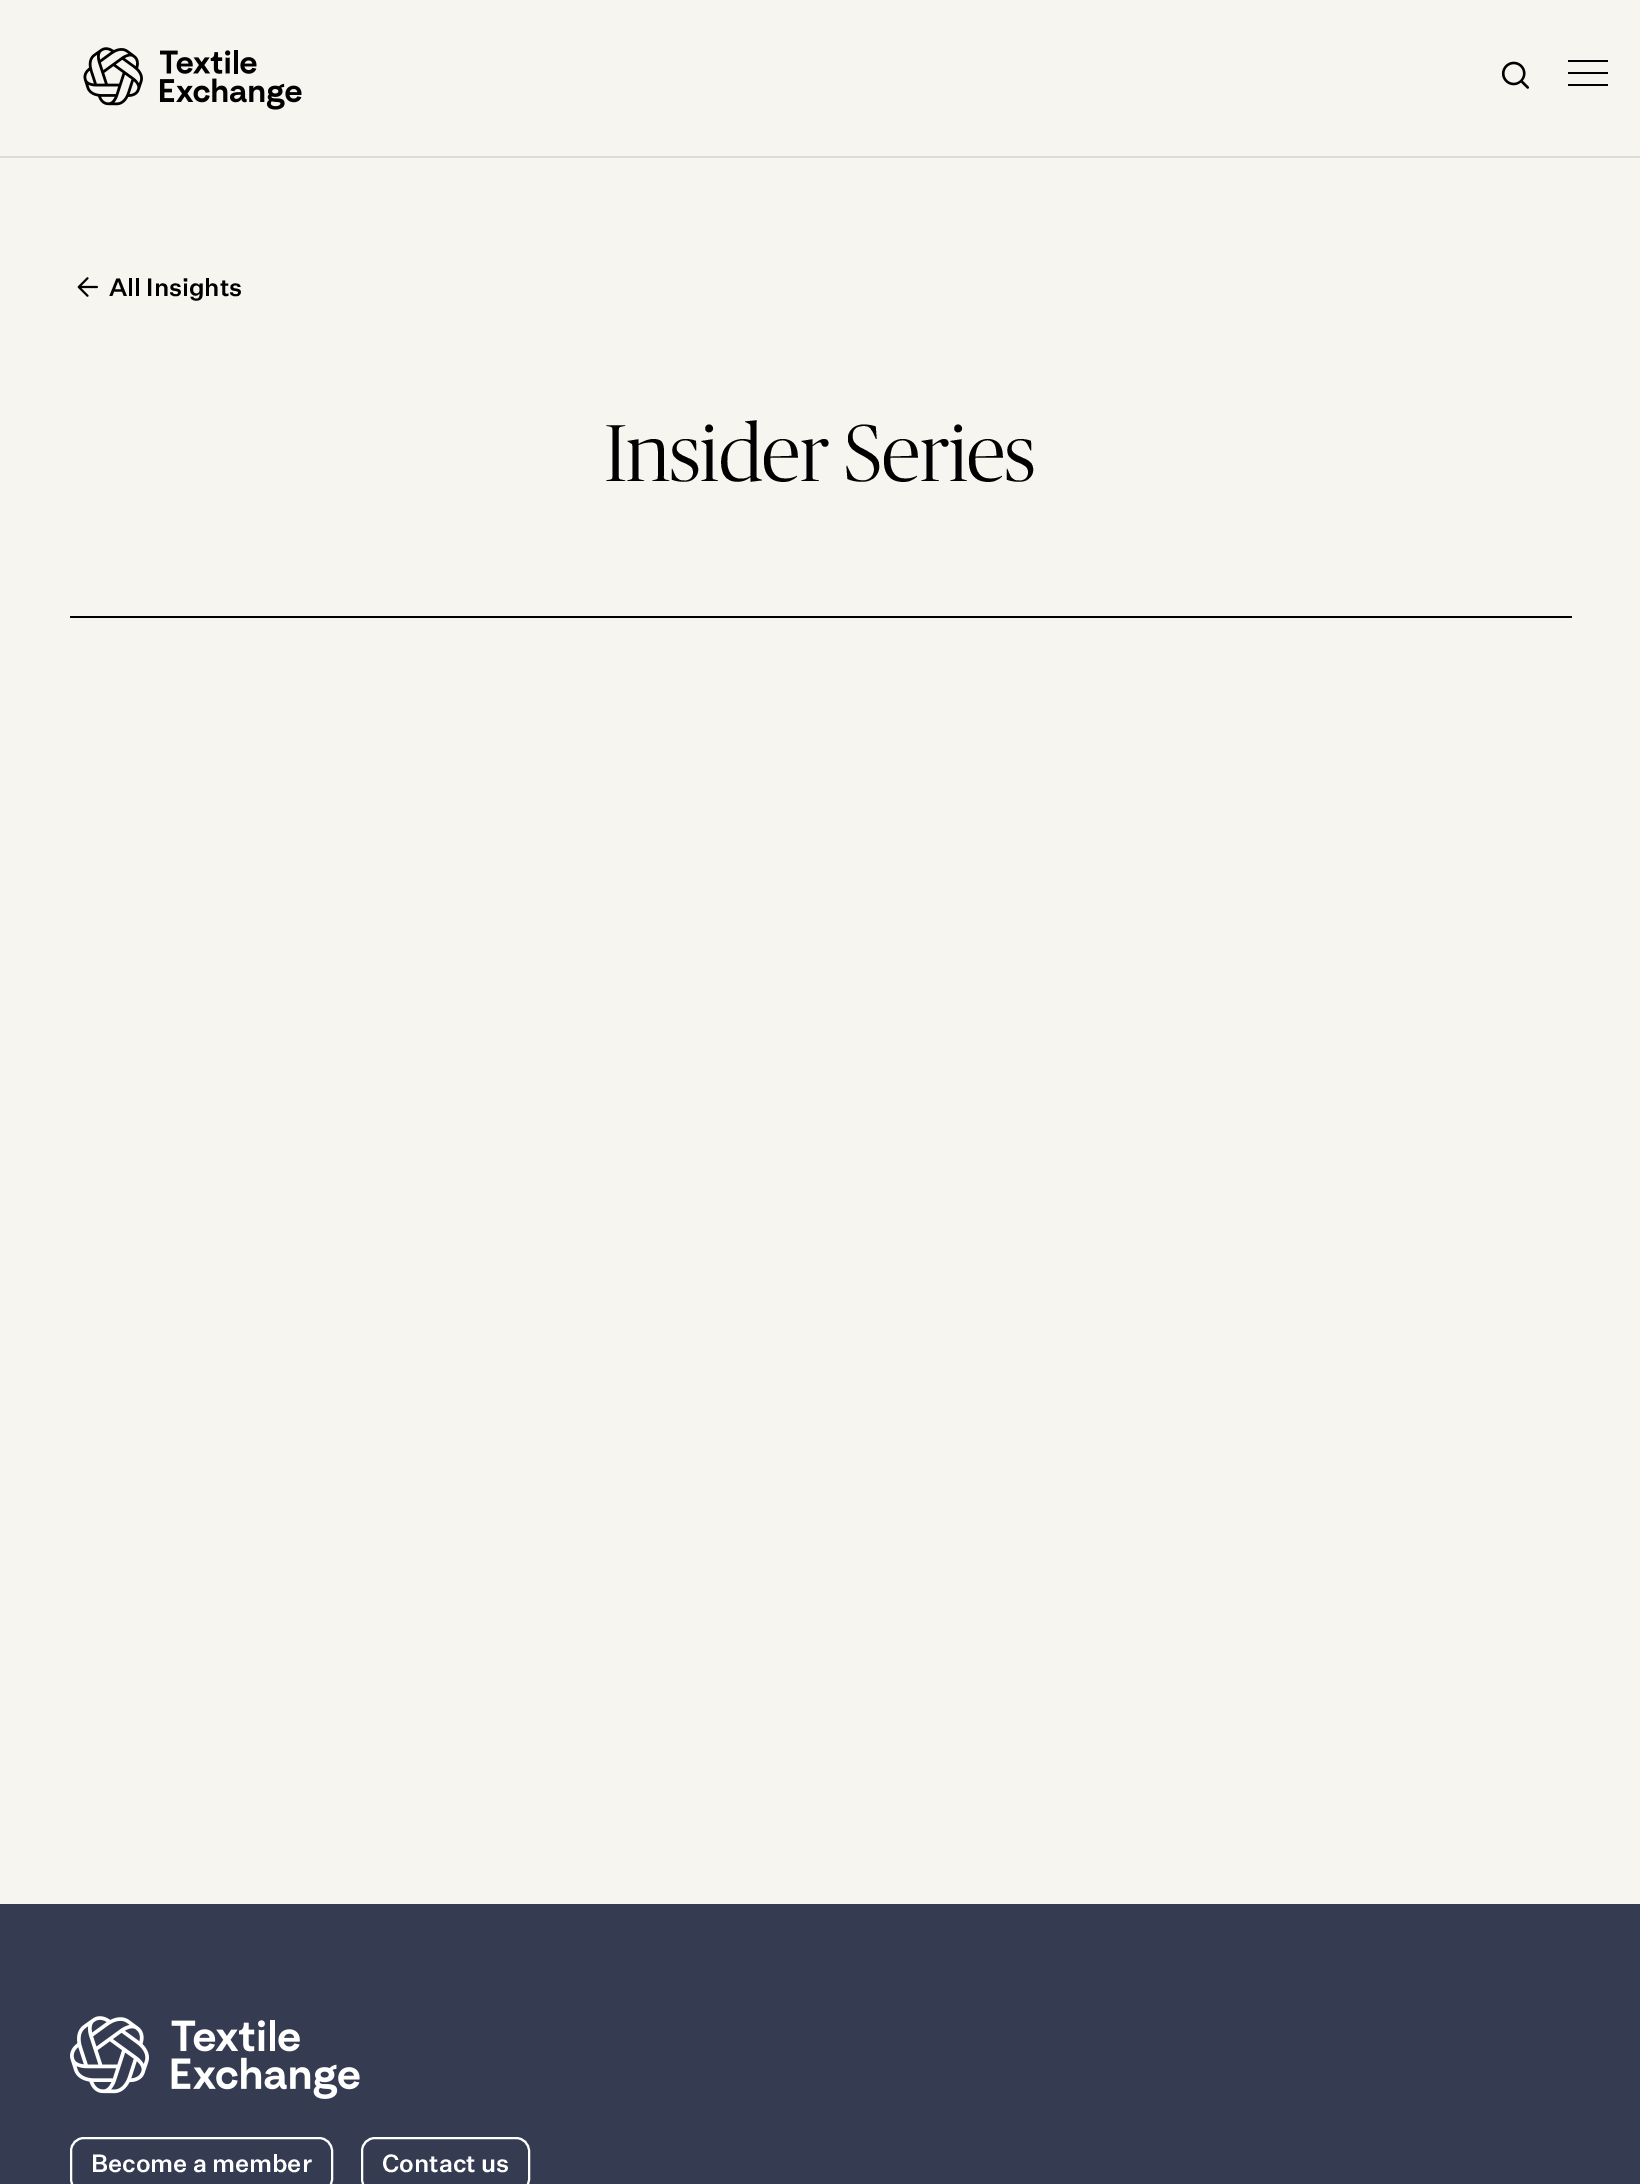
%!PS
<< /PageSize [1640 2184] >> setpagedevice
/rgb { 3 { 255 div 3 1 roll } repeat setrgbcolor } def
/font { [ exch dup neg 0 0 3 -1 roll 0 0 ] selectfont } def
/roundrect { 5 dict begin { /r /h /w /y /x } { exch def } forall
  x r add y moveto x w add y 2 copy h add r arct x w add y h add x 1 index r arct
  x y h add x y r arct x y 2 copy exch w add exch r arct closepath end } def
/picture { 5 dict begin { /h /w /y /x /name } { exch def } forall
  gsave x y translate w h scale
  w h 8 [w 0 0 h 0 0] name (r) file false 3 colorimage grestore end } def
0 2184 translate 1 -1 scale
4 setmiterlimit
246 245 239 rgb
0 0 1640 2184 rectfill
221 221 215 rgb
0 156 1640 2 rectfill
(img/1.rgb) 83 47 219 63 picture
(img/2.rgb) 1501 61 29 28 picture
[
  [1568 60 40 2 0 0 0]
  [1568 72 40 2 0 0 0]
  [1568 84 40 2 0 0 0]
] { aload pop rgb rectfill } forall
(img/3.rgb) 77 277 21 20 picture
70 616 1502 2 rectfill
53 60 82 rgb
0 1904 1640 280 rectfill
(img/4.rgb) 70 2016 290 83 picture
255 255 255 rgb
2 setlinewidth
71 2138 261 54 13 roundrect stroke
362 2138 167 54 13 roundrect stroke
/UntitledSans-Medium 24.5 font
0 0 0 rgb
109 296 moveto (All Insights) show
/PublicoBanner-Light 80.5 font
605 481 moveto (Insider Series) show
/UntitledSans-Medium 24.5 font
255 255 255 rgb
91 2172 moveto (Become a member) show
382 2172 moveto (Contact us) show
showpage
